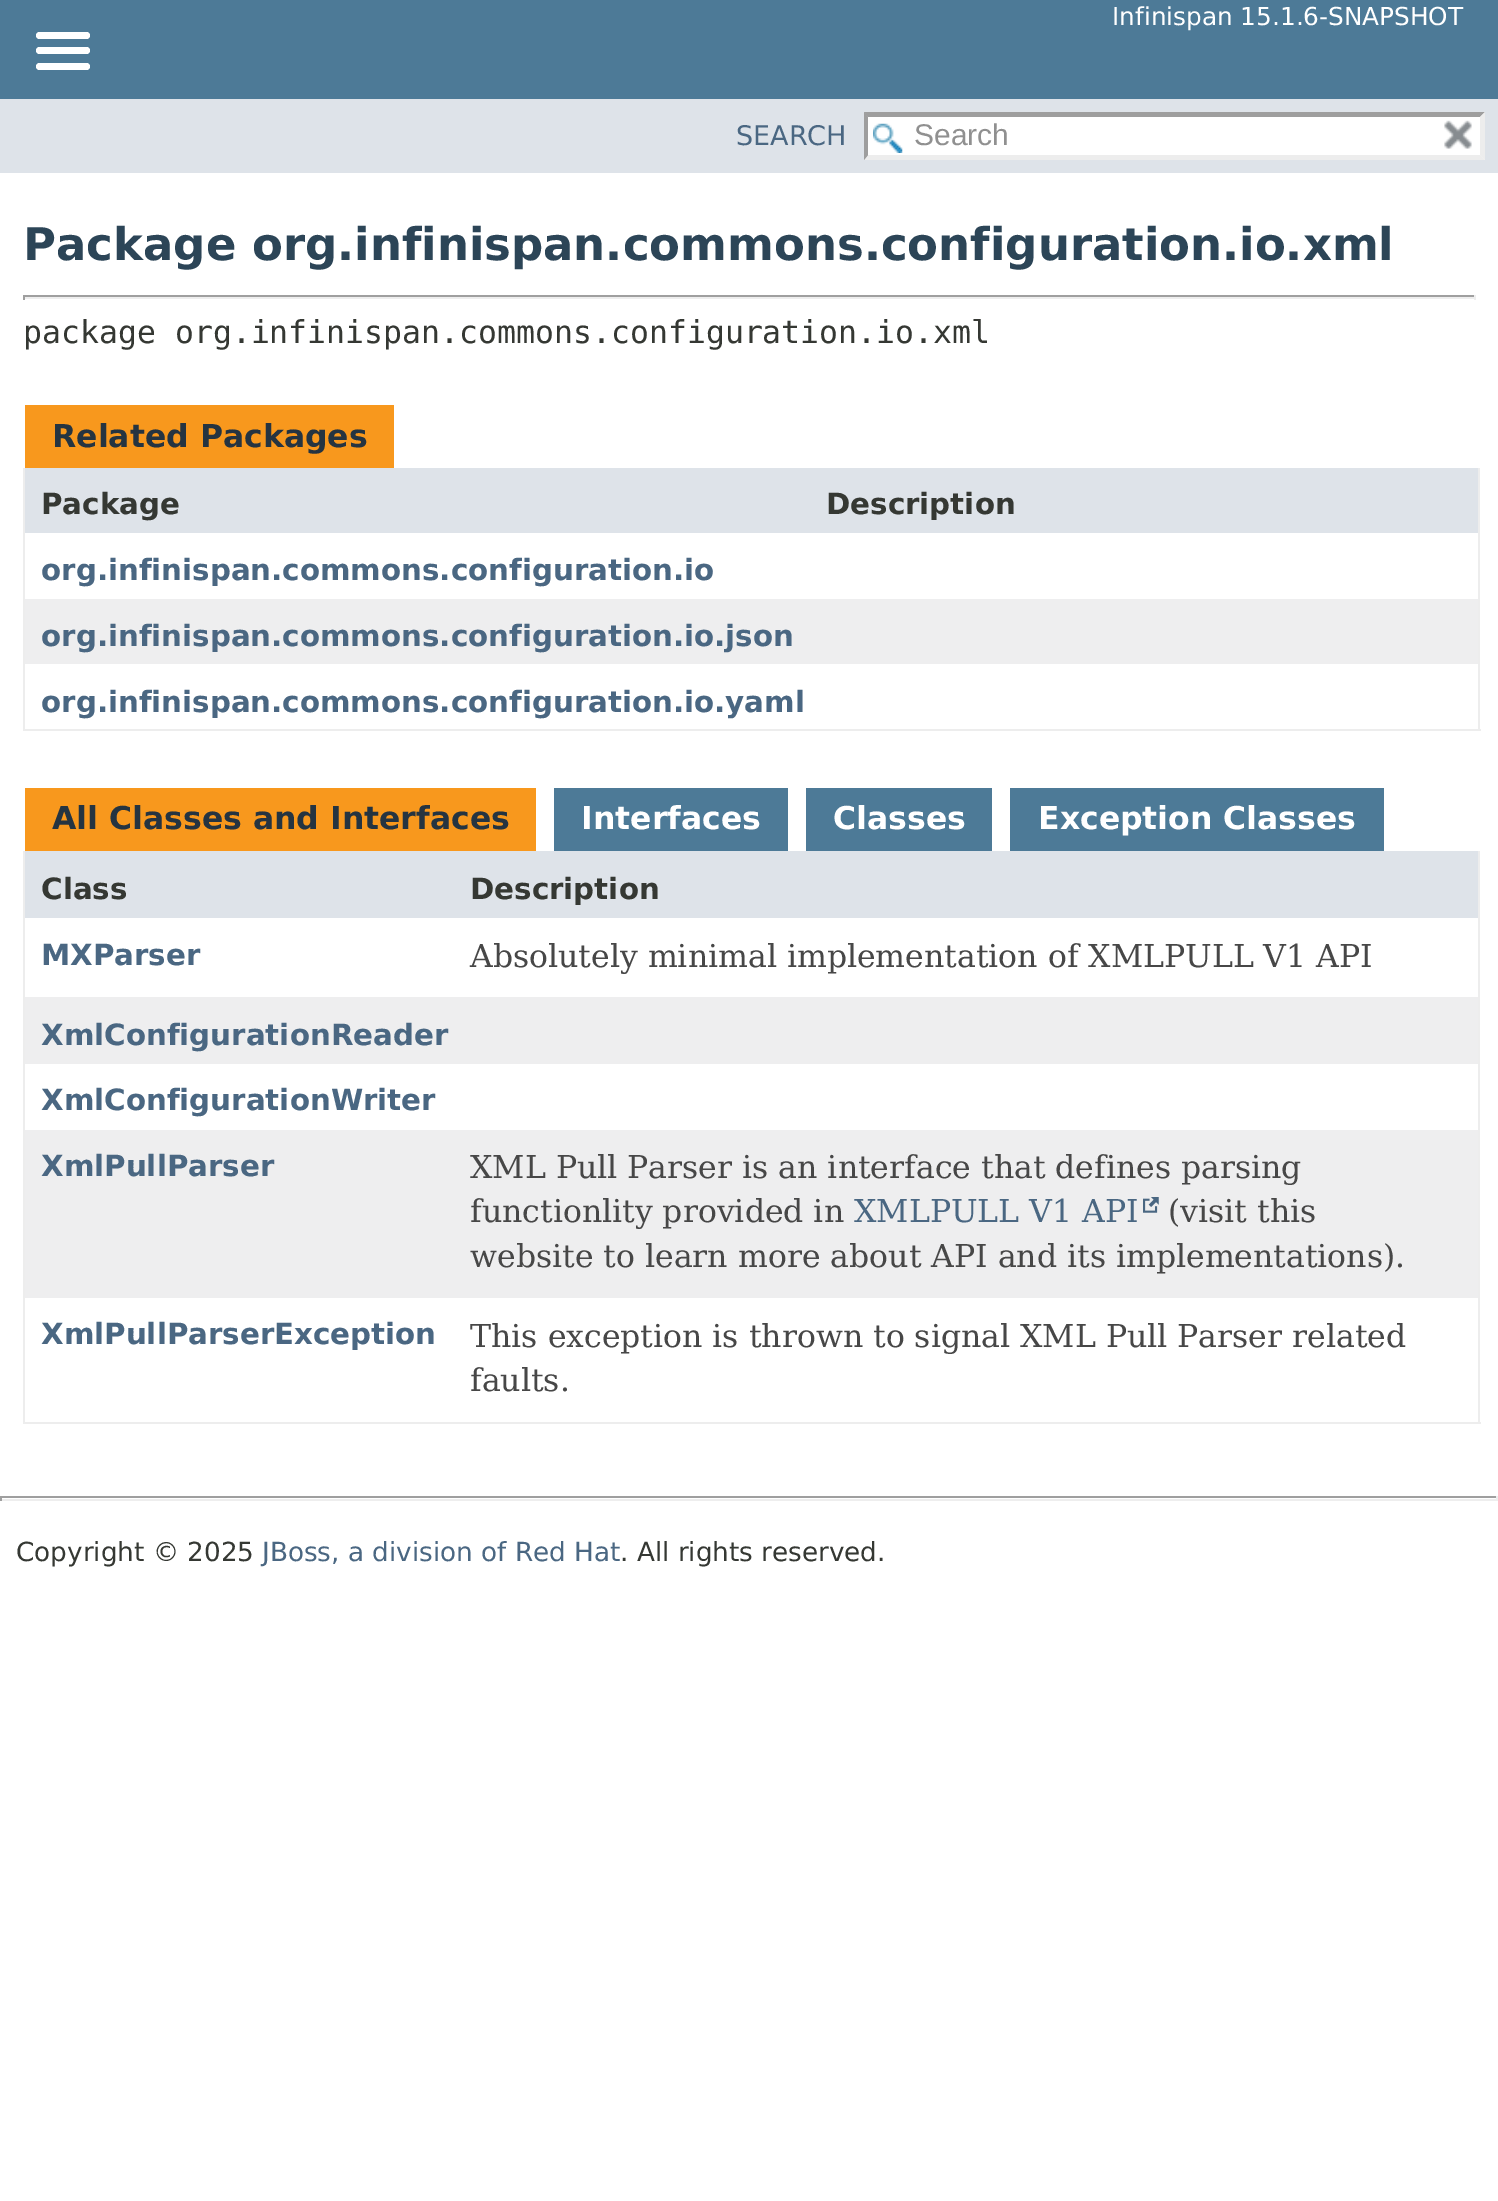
%!PS
<< /PageSize [1498 2201] >> setpagedevice
/rgb { 3 { 255 div 3 1 roll } repeat setrgbcolor } def
/font { [ exch dup neg 0 0 3 -1 roll 0 0 ] selectfont } def
/roundrect { 5 dict begin { /r /h /w /y /x } { exch def } forall
  x r add y moveto x w add y 2 copy h add r arct x w add y h add x 1 index r arct
  x y h add x y r arct x y 2 copy exch w add exch r arct closepath end } def
/picture { 5 dict begin { /h /w /y /x /name } { exch def } forall
  gsave x y translate w h scale
  w h 8 [w 0 0 h 0 0] name (r) file false 3 colorimage grestore end } def
0 2201 translate 1 -1 scale
4 setmiterlimit
255 255 255 rgb
0 0 1498 2201 rectfill
77 122 151 rgb
0 0 1498 99 rectfill
255 255 255 rgb
36 32 54 7 3.5 roundrect fill
36 47 54 7 3.5 roundrect fill
36 63 54 7 3.5 roundrect fill
222 227 233 rgb
0 99 1498 74 rectfill
255 255 255 rgb
864 113 621 47 rectfill
(img/1.rgb) 873 123 30 30 picture
158 158 158 rgb
864 112 moveto 1485 112 lineto 1480 117 lineto 868 117 lineto closepath fill
237 237 237 rgb
1485 112 moveto 1485 160 lineto 1480 155 lineto 1480 117 lineto closepath fill
1485 160 moveto 864 160 lineto 868 155 lineto 1480 155 lineto closepath fill
158 158 158 rgb
864 160 moveto 864 112 lineto 868 117 lineto 868 155 lineto closepath fill
(img/2.rgb) 1444 120 28 29 picture
[
  [23 295 1453 2 159 159 159]
  [1474 295 2 5 238 238 238]
  [23 297 1453 2 238 238 238]
  [23 295 2 5 159 159 159]
  [25 405 369 63 248 152 29]
  [1478 468 2 263 237 237 237]
  [23 729 1458 2 237 237 237]
  [23 468 2 263 237 237 237]
  [25 468 1453 65 222 227 233]
  [25 599 1453 65 238 238 239]
  [25 788 511 63 248 152 29]
  [554 788 234 63 77 122 151]
  [806 788 186 63 77 122 151]
  [1010 788 374 63 77 122 151]
  [1478 851 2 573 237 237 237]
  [23 1422 1458 2 237 237 237]
  [23 851 2 573 237 237 237]
  [25 851 1453 67 222 227 233]
  [25 997 1453 67 238 238 239]
  [25 1130 1453 168 238 238 239]
] { aload pop rgb rectfill } forall
(img/3.rgb) 1143 1197 16 16 picture
[
  [0 1496 1498 2 159 159 159]
  [1496 1496 2 5 238 238 238]
  [0 1499 1498 2 238 238 238]
  [0 1496 2 5 159 159 159]
] { aload pop rgb rectfill } forall
/DejaVuSans-Regular 24.75 font
255 255 255 rgb
1112 25 moveto (Infinispan 15.1.6-SNAPSHOT) show
/DejaVuSans-Regular 27 font
74 103 130 rgb
736 145 moveto (SEARCH) show
/LiberationSans-Regular 30 font
144 144 144 rgb
914 145 moveto (Search) show
/DejaVuSans-Bold 45 font
44 69 87 rgb
23 260 moveto (Package org.infinispan.commons.configuration.io.xml) show
/DejaVuSansMono-Regular 31.5 font
53 56 51 rgb
23 343 moveto (package org.infinispan.commons.configuration.io.xml) show
/DejaVuSans-Bold 31.5 font
37 52 65 rgb
52 447 moveto (Related Packages) show
/DejaVuSans-Bold 29.3 font
53 56 51 rgb
41 514 moveto (Package) show
826 514 moveto (Description) show
74 103 130 rgb
[
  [(org.infinispan.commons.configuration.io) 41 580]
  [(org.infinispan.commons.configuration.io.json) 41 646]
  [(org.infinispan.commons.configuration.io.yaml) 41 712]
] { aload pop moveto show } forall
/DejaVuSans-Bold 31.5 font
37 52 65 rgb
52 829 moveto (All Classes and Interfaces) show
255 255 255 rgb
[
  [(Interfaces) 581 829]
  [(Classes) 833 829]
  [(Exception Classes) 1038 829]
] { aload pop moveto show } forall
/DejaVuSans-Bold 29.3 font
53 56 51 rgb
41 899 moveto (Class) show
470 899 moveto (Description) show
74 103 130 rgb
41 965 moveto (MXParser) show
/DejaVuSerif-Regular 31.5 font
71 71 71 rgb
470 967 moveto (Absolutely minimal implementation of XMLPULL V1 API) show
/DejaVuSans-Bold 29.3 font
74 103 130 rgb
[
  [(XmlConfigurationReader) 41 1045]
  [(XmlConfigurationWriter) 41 1110]
  [(XmlPullParser) 41 1176]
] { aload pop moveto show } forall
/DejaVuSerif-Regular 31.5 font
71 71 71 rgb
470 1178 moveto (XML Pull Parser is an interface that defines parsing) show
470 1222 moveto (functionlity provided in) show
74 103 130 rgb
854 1222 moveto (XMLPULL V1 API) show
71 71 71 rgb
1168 1222 moveto (\(visit this) show
470 1267 moveto (website to learn more about API and its implementations\).) show
/DejaVuSans-Bold 29.3 font
74 103 130 rgb
41 1344 moveto (XmlPullParserException) show
/DejaVuSerif-Regular 31.5 font
71 71 71 rgb
470 1347 moveto (This exception is thrown to signal XML Pull Parser related) show
470 1391 moveto (faults.) show
/DejaVuSans-Regular 26.25 font
53 56 51 rgb
16 1561 moveto (Copyright © 2025) show
74 103 130 rgb
262 1561 moveto (JBoss, a division of Red Hat) show
53 56 51 rgb
620 1561 moveto (. All rights reserved.) show
showpage
